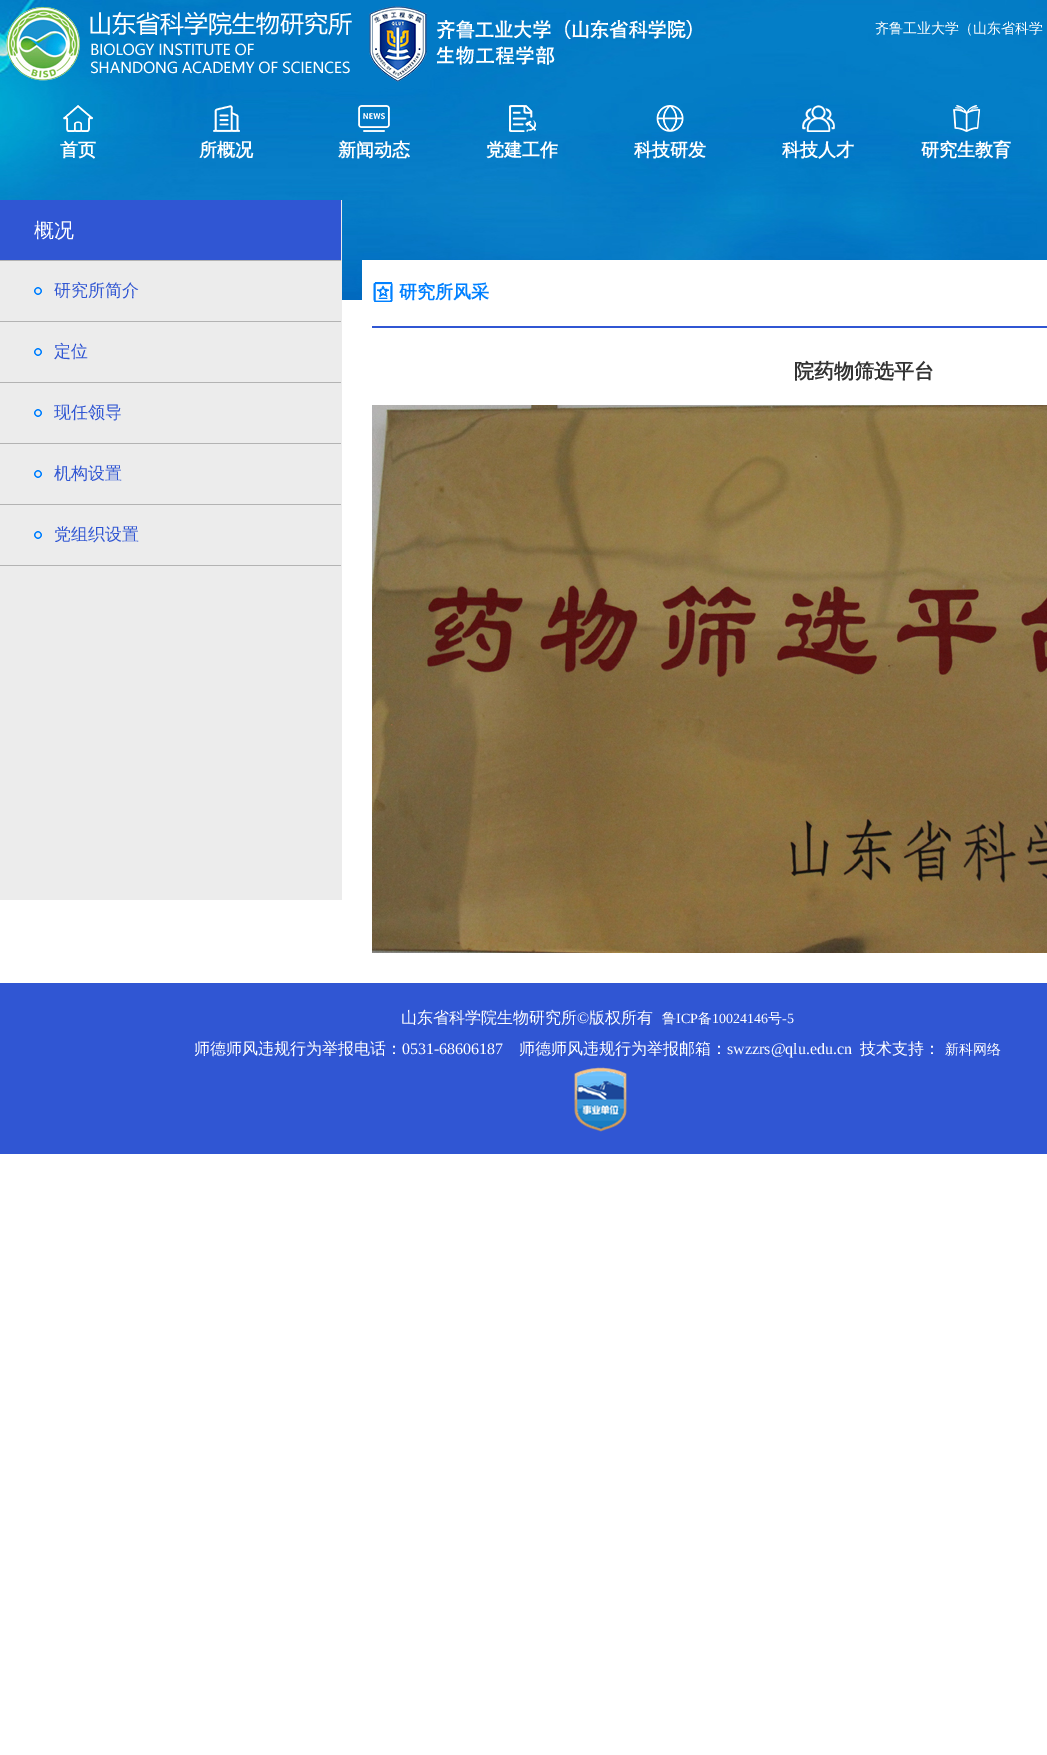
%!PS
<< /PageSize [1047 1755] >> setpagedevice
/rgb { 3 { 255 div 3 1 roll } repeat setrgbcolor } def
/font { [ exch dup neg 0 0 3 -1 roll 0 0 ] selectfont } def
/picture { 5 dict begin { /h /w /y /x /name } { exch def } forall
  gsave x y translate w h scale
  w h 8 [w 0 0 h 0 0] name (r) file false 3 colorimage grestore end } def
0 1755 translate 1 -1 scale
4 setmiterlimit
255 255 255 rgb
0 0 1047 1755 rectfill
(img/1.rgb) 0 0 1047 300 picture
(img/2.rgb) 6 7 346 74 picture
(img/3.rgb) 369 6 323 76 picture
(img/4.rgb) 63 105 30 27 picture
(img/5.rgb) 213 105 27 27 picture
(img/6.rgb) 358 105 32 27 picture
(img/7.rgb) 509 105 27 27 picture
(img/8.rgb) 656 105 28 27 picture
(img/9.rgb) 802 105 33 27 picture
(img/10.rgb) 953 105 28 27 picture
[
  [0 200 342 700 236 236 236]
  [0 200 341 60 48 86 211]
  [0 260 341 1 179 179 179]
  [0 321 341 1 179 179 179]
] { aload pop rgb rectfill } forall
(img/11.rgb) 34 287 8 8 picture
0 382 341 1 rectfill
(img/11.rgb) 34 348 8 8 picture
0 443 341 1 rectfill
(img/11.rgb) 34 409 8 8 picture
0 504 341 1 rectfill
(img/11.rgb) 34 470 8 8 picture
0 565 341 1 rectfill
(img/11.rgb) 34 531 8 8 picture
255 255 255 rgb
362 260 685 40 rectfill
48 86 211 rgb
372 326 675 2 rectfill
(img/12.rgb) 373 282 20 20 picture
(img/13.rgb) 372 405 675 548 picture
0 983 1047 171 rectfill
(img/14.rgb) 574 1067 53 65 picture
/WenQuanYiZenHei-Medium 14 font
255 255 255 rgb
875 33 moveto (齐鲁工业大学（山东省科学) show
/WenQuanYiZenHei-Bold 18 font
[
  [(首页) 60 156]
  [(所概况) 199 156]
  [(新闻动态) 338 156]
  [(党建工作) 486 156]
  [(科技研发) 634 156]
  [(科技人才) 782 156]
  [(研究生教育) 921 156]
] { aload pop moveto show } forall
/WenQuanYiZenHei-Medium 20 font
34 237 moveto (概况) show
/WenQuanYiZenHei-Medium 17 font
48 86 211 rgb
[
  [(研究所简介) 54 296]
  [(定位) 54 357]
  [(现任领导) 54 418]
  [(机构设置) 54 479]
  [(党组织设置) 54 540]
] { aload pop moveto show } forall
/WenQuanYiZenHei-Bold 18 font
0 128 255 rgb
399 298 moveto (研究所风采) show
/WenQuanYiZenHei-Bold 20 font
51 51 51 rgb
794 378 moveto (院药物筛选平台) show
/WenQuanYiZenHei-Medium 16 font
255 255 255 rgb
401 1023 moveto (山东省科学院生物研究所) show
/LiberationSerif-Regular 16 font
577 1023 moveto (©) show
/WenQuanYiZenHei-Medium 16 font
589 1023 moveto (版权所有) show
/WenQuanYiZenHei-Medium 14 font
662 1023 moveto (鲁) show
/LiberationSerif-Regular 14 font
676 1023 moveto (ICP) show
/WenQuanYiZenHei-Medium 14 font
698 1023 moveto (备) show
/LiberationSerif-Regular 14 font
712 1023 moveto (10024146) show
/WenQuanYiZenHei-Medium 14 font
768 1023 moveto (号) show
/LiberationSerif-Regular 14 font
782 1023 moveto (-5) show
/WenQuanYiZenHei-Medium 16 font
194 1054 moveto (师德师风违规行为举报电话：) show
/LiberationSerif-Regular 16 font
402 1054 moveto (0531-68606187) show
/WenQuanYiZenHei-Medium 16 font
519 1054 moveto (师德师风违规行为举报邮箱：) show
/LiberationSerif-Regular 16 font
727 1054 moveto (swzzrs@qlu.edu.cn) show
/WenQuanYiZenHei-Medium 16 font
860 1054 moveto (技术支持：) show
/WenQuanYiZenHei-Medium 14 font
945 1054 moveto (新科网络) show
showpage
